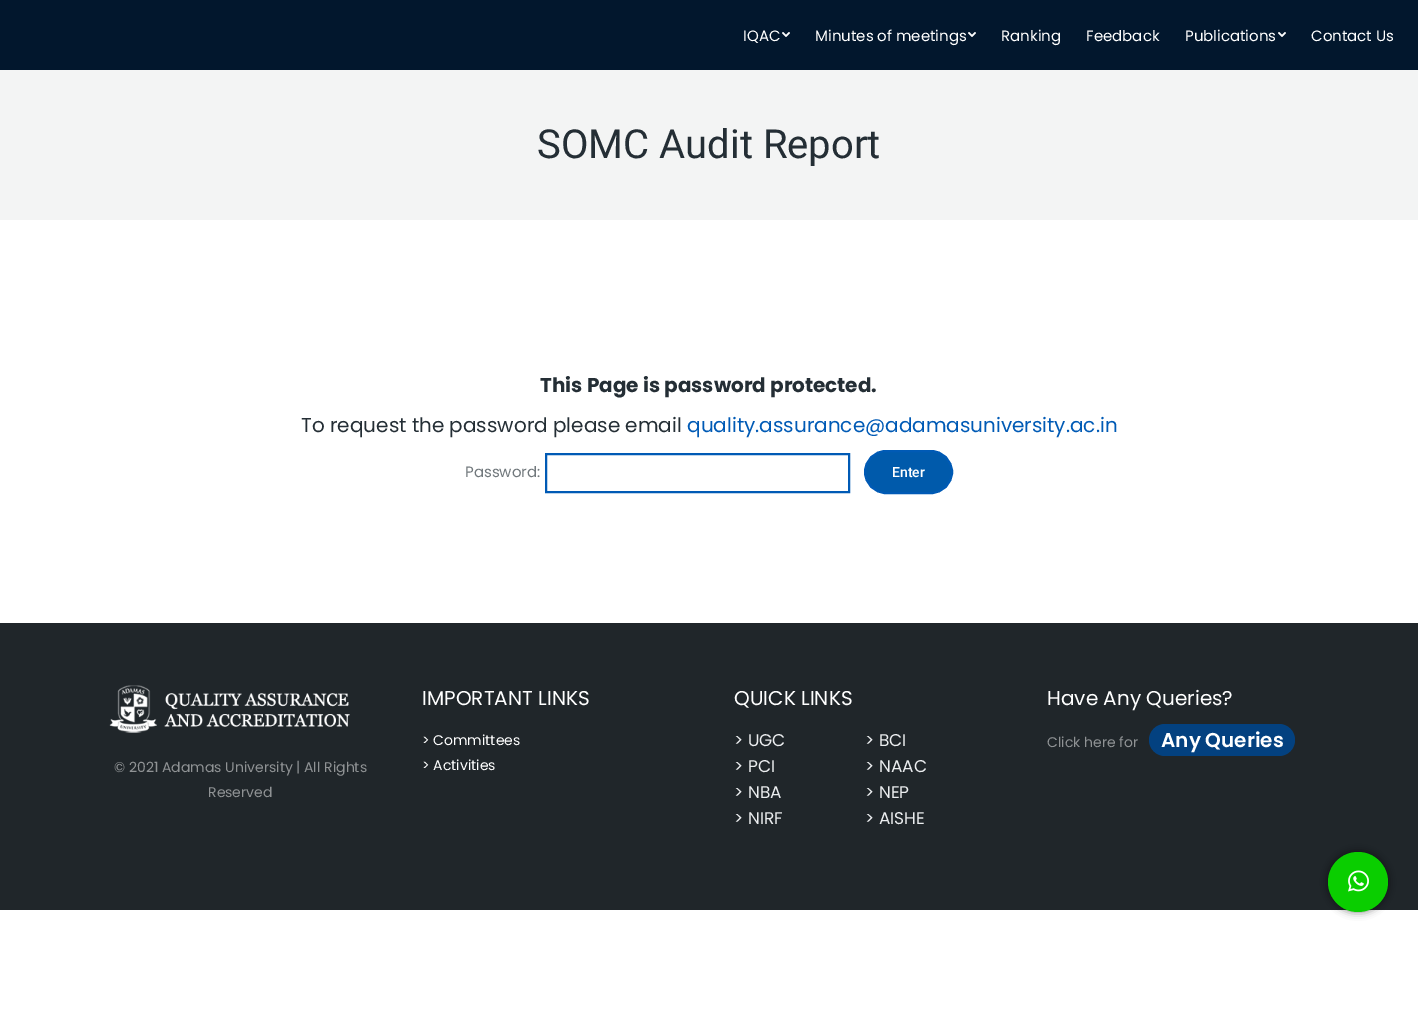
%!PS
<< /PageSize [1418 1032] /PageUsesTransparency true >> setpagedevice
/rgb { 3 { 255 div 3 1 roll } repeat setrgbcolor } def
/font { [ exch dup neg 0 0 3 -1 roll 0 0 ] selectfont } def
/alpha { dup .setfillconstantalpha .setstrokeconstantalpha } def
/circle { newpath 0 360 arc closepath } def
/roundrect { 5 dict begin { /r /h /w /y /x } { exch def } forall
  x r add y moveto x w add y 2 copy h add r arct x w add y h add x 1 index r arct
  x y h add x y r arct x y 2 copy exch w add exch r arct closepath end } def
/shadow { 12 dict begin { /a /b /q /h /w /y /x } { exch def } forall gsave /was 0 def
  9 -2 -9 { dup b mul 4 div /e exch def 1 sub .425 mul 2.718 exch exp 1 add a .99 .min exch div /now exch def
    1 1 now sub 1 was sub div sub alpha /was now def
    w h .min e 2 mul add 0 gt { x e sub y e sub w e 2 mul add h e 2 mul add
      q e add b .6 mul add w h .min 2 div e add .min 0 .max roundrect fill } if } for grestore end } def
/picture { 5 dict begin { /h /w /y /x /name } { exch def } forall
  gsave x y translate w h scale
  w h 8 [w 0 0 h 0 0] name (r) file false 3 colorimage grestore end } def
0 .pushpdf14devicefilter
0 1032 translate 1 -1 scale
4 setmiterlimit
255 255 255 rgb
0 0 1418 1032 rectfill
2 23 45 rgb
0 0 1418 70 rectfill
(img/1.rgb) 782 32 8 5 picture
(img/1.rgb) 968 32 8 5 picture
(img/1.rgb) 1278 32 8 5 picture
243 244 244 rgb
0 70 1418 150 rectfill
0 90 181 rgb
2 setlinewidth
546 454 303 38 rectstroke
0 90 171 rgb
865 451 87 42 21 roundrect gsave fill grestore
0 90 181 rgb
stroke
32 38 42 rgb
0 623 1418 287 rectfill
(img/2.rgb) 109 685 241 48 picture
3 65 128 rgb
1149 724 146 32 16 roundrect fill
0 0 0 rgb
1328 852 60 60 30 4 0.5 shadow
10 206 0 rgb
1358 882 30 circle fill
(img/3.rgb) 1348 870 21 22 picture
/Poppins-Regular 15 font
255 255 255 rgb
[
  [(IQAC) 743 41]
  [(Minutes of meetings) 815 41]
  [(Ranking) 1001 41]
  [(Feedback) 1086 41]
  [(Publications) 1185 41]
  [(Contact Us) 1311 41]
] { aload pop moveto show } forall
/Roboto-Regular 40 font
36 46 53 rgb
537 158 moveto (SOMC Audit Report) show
/Poppins-Bold 20 font
540 392 moveto (This Page is password protected.) show
/Poppins-Regular 20 font
301 432 moveto (To request the password please email) show
0 90 181 rgb
687 432 moveto (quality.assurance@adamasuniversity.ac.in) show
/Poppins-Regular 15 font
113 120 124 rgb
465 477 moveto (Password:) show
/Roboto-Medium 14 font
255 255 255 rgb
892 477 moveto (Enter) show
/Poppins-Regular 14 font
143 146 148 rgb
114 772 moveto (© 2021 Adamas University | All Rights) show
208 797 moveto (Reserved) show
/Poppins-Regular 20 font
255 255 255 rgb
422 705 moveto (IMPORTANT LINKS) show
/Poppins-Regular 14 font
422 745 moveto (> Committees) show
422 770 moveto (> Activities) show
/Poppins-Regular 20 font
734 705 moveto (QUICK LINKS) show
/Poppins-Regular 17 font
235 237 239 rgb
[
  [(> UGC) 734 746]
  [(> PCI) 734 772]
  [(> NBA) 734 798]
  [(> NIRF) 734 824]
  [(> BCI) 865 746]
  [(> NAAC) 865 772]
  [(> NEP) 865 798]
  [(> AISHE) 865 824]
] { aload pop moveto show } forall
/Poppins-Regular 20 font
255 255 255 rgb
1047 705 moveto (Have Any Queries?) show
/Poppins-Regular 14 font
143 146 148 rgb
1047 747 moveto (Click here for) show
/Poppins-SemiBold 20 font
255 255 255 rgb
1161 747 moveto (Any Queries) show
.poppdf14devicefilter showpage
